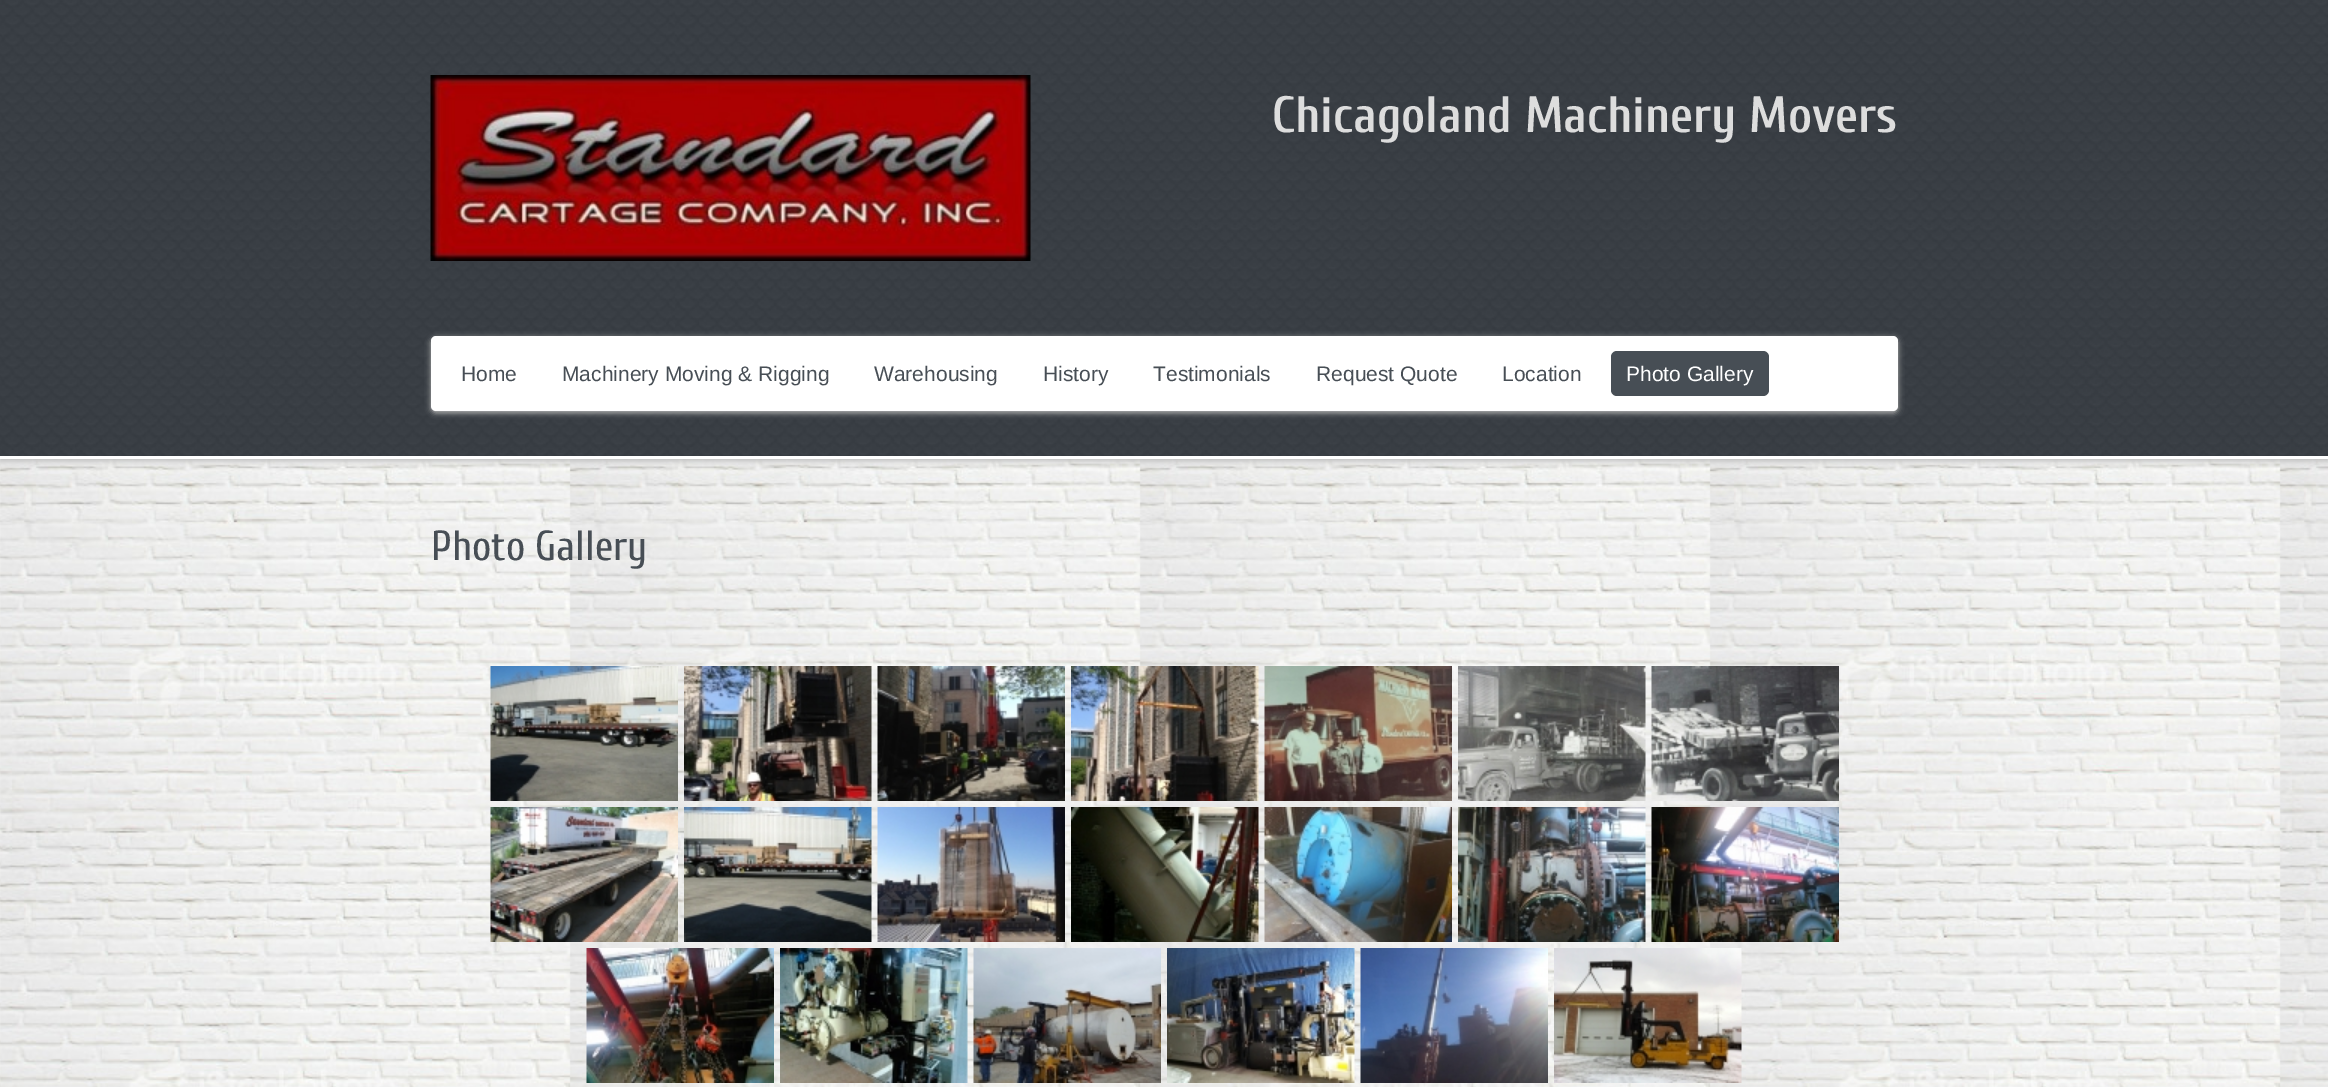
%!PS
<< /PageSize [2328 1087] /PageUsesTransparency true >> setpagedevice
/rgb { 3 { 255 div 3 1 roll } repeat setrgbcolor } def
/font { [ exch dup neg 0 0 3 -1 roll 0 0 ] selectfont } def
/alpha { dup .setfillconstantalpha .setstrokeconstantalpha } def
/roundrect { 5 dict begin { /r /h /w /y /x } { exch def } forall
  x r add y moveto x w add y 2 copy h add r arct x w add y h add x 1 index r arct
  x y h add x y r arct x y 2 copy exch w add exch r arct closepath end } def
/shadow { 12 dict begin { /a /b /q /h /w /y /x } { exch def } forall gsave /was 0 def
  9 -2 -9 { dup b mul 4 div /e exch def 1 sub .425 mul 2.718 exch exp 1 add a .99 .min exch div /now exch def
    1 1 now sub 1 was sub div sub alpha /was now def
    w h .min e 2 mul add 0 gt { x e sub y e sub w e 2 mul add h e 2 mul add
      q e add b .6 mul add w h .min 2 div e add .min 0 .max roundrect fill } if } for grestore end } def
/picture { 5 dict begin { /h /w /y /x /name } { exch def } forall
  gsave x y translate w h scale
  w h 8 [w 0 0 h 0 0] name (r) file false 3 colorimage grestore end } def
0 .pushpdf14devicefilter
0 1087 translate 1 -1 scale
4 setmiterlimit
255 255 255 rgb
0 0 2328 1087 rectfill
(img/1.rgb) 0 459 2328 628 picture
186 186 186 rgb
0 2 2328 459 0 3 1 shadow
(img/2.rgb) 0 0 2328 456 picture
255 255 255 rgb
0 456 2328 3 rectfill
(img/3.rgb) 430 75 601 186 picture
186 186 186 rgb
431 338 1467 75 5 3 1 shadow
255 255 255 rgb
431 336 1467 75 5 roundrect fill
71 78 85 rgb
1611 351 158 45 6 roundrect fill
(img/4.rgb) 490 666 188 135 picture
(img/5.rgb) 684 666 188 135 picture
(img/6.rgb) 877 666 188 135 picture
(img/7.rgb) 1071 666 188 135 picture
(img/8.rgb) 1264 666 188 135 picture
(img/9.rgb) 1458 666 188 135 picture
(img/10.rgb) 1651 666 188 135 picture
(img/11.rgb) 490 807 188 135 picture
(img/12.rgb) 684 807 188 135 picture
(img/13.rgb) 877 807 188 135 picture
(img/14.rgb) 1071 807 188 135 picture
(img/15.rgb) 1264 807 188 135 picture
(img/16.rgb) 1458 807 188 135 picture
(img/17.rgb) 1651 807 188 135 picture
(img/18.rgb) 586 948 188 135 picture
(img/19.rgb) 780 948 188 135 picture
(img/20.rgb) 973 948 188 135 picture
(img/21.rgb) 1167 948 188 135 picture
(img/22.rgb) 1360 948 188 135 picture
(img/23.rgb) 1554 948 188 135 picture
/Cuprum-SemiBold 51 font
221 221 221 rgb
1272 132 moveto (Chicagoland Machinery Movers) show
/LiberationSans-Regular 21 font
71 78 85 rgb
[
  [(Home) 461 381]
  [(Machinery Moving & Rigging) 562 381]
  [(Warehousing) 874 381]
  [(History) 1043 381]
  [(Testimonials) 1153 381]
  [(Request Quote) 1316 381]
  [(Location) 1502 381]
] { aload pop moveto show } forall
255 255 255 rgb
1626 381 moveto (Photo Gallery) show
/Cuprum-Regular 42 font
71 78 85 rgb
431 560 moveto (Photo Gallery) show
.poppdf14devicefilter showpage
